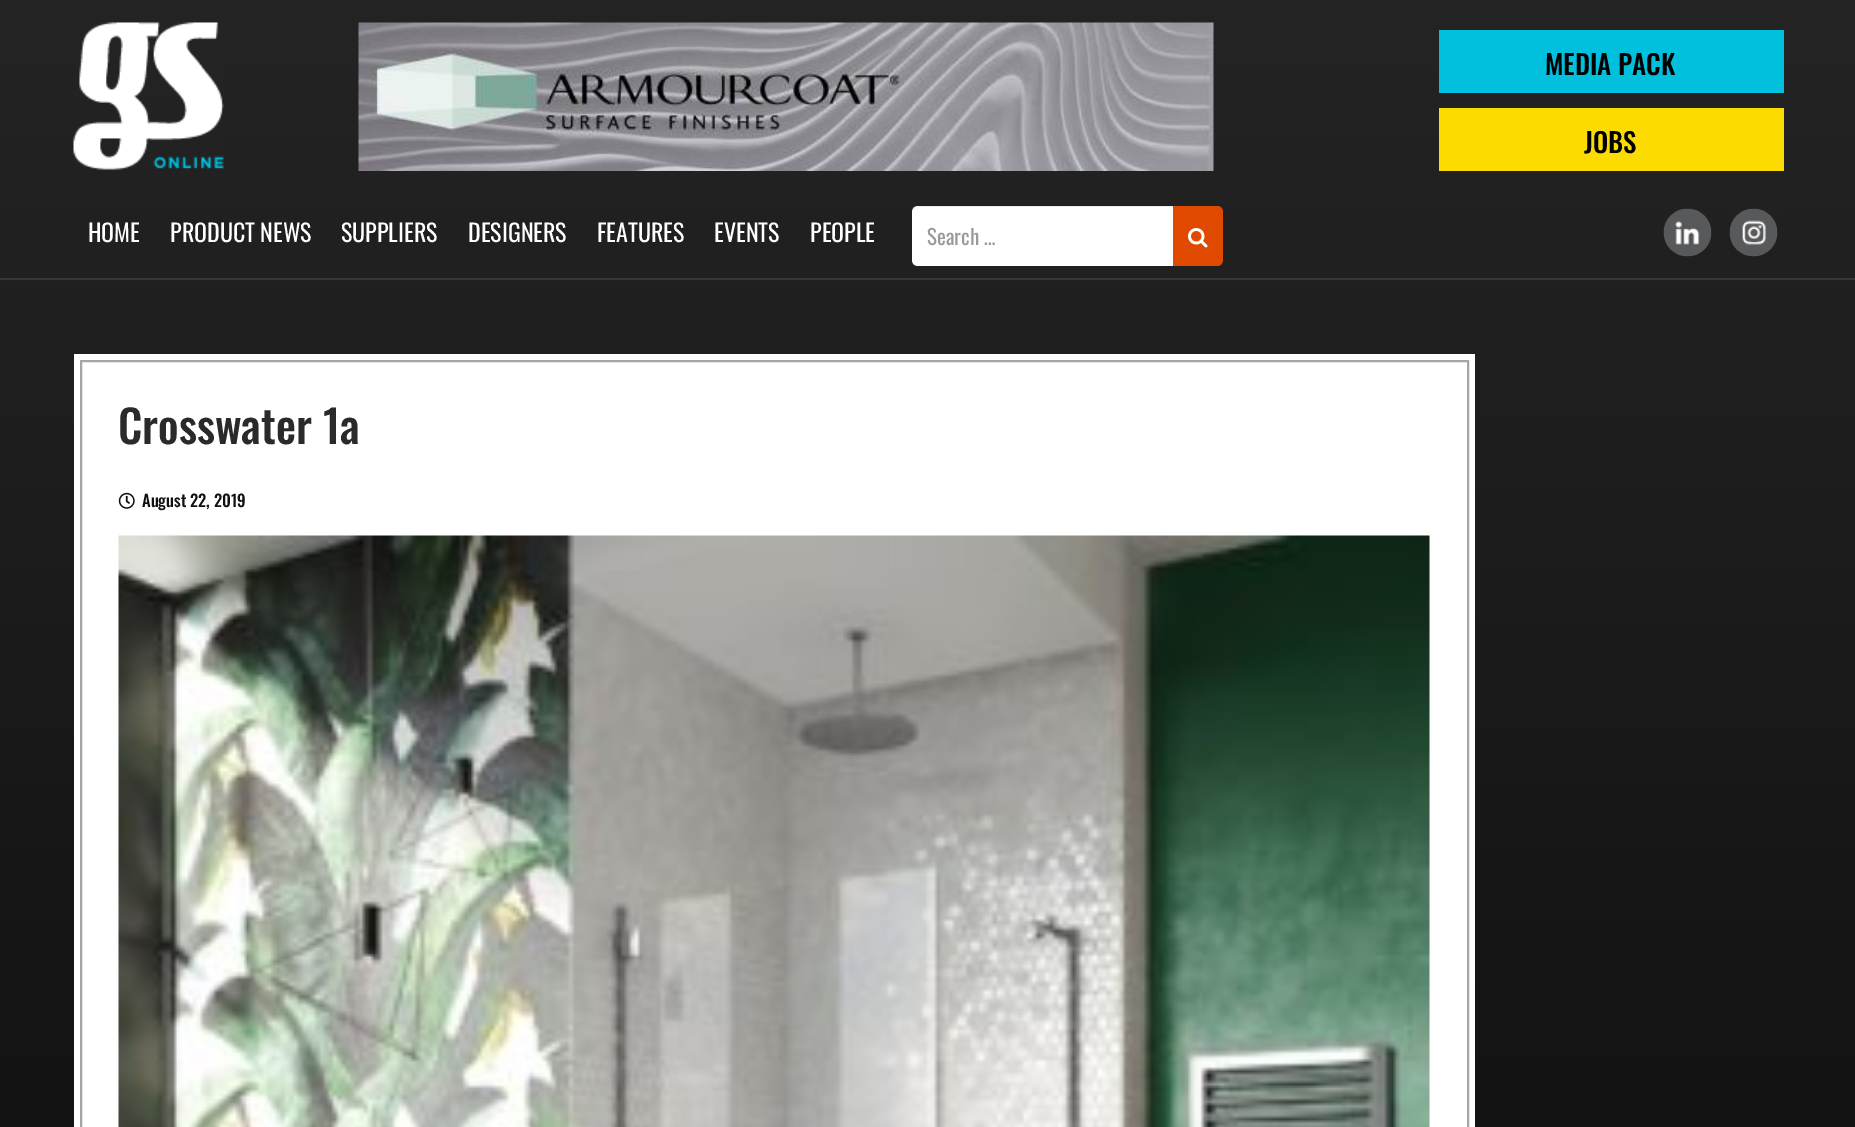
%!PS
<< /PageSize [1855 1127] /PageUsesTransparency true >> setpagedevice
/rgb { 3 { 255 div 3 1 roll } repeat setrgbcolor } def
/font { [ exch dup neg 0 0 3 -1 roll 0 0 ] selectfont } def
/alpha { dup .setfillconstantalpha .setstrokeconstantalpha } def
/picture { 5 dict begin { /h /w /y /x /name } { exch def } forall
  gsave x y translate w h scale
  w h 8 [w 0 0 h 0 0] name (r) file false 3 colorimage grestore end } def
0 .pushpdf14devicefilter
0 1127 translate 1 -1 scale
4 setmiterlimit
255 255 255 rgb
0 0 1855 1127 rectfill
gsave 0 0 moveto 1855 0 lineto 1855 1127 lineto 0 1127 lineto closepath clip newpath
<< /ShadingType 2 /ColorSpace /DeviceRGB /Coords [928 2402 928 0] /Extend [true true] /Function << /FunctionType 2 /Domain [0 1] /C0 [0 0 0] /C1 [0.141 0.141 0.141] /N 1 >> >> shfill grestore
(img/1.rgb) 73 22 151 148 picture
(img/2.rgb) 358 22 856 149 picture
[
  [1439 30 345 63 0 192 222]
  [1439 108 345 63 252 219 0]
  [0 278 1855 2 54 54 54]
] { aload pop rgb rectfill } forall
255 255 255 rgb
918 206 moveto 1175 206 lineto 1175 266 lineto 918 266 lineto 914.5 266 912 263.5 912 260 curveto 912 212 lineto 912 208.5 914.5 206 918 206 curveto closepath fill
0.07 alpha
0 0 0 rgb
918 207 moveto 1174 207 lineto 1174 266 lineto 1175 266 lineto 1175 206 lineto 917 206 lineto 913 207 912 210 912 213 curveto 912 210 915 207 918 207 curveto closepath fill
1 alpha
223 73 0 rgb
1173 206 moveto 1217 206 lineto 1220.5 206 1223 208.5 1223 212 curveto 1223 260 lineto 1223 263.5 1220.5 266 1217 266 curveto 1173 266 lineto closepath fill
(img/3.rgb) 1188 228 20 20 picture
(img/4.rgb) 1663 208 49 49 picture
(img/5.rgb) 1729 208 49 49 picture
255 255 255 rgb
74 354 1401 773 rectfill
(img/6.rgb) 118 492 17 17 picture
(img/7.rgb) 118 535 1312 592 picture
165 165 165 rgb
2 setlinewidth
81 361 1387 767 rectstroke
/Oswald-Medium 27 font
0 0 0 rgb
1545 75 moveto (MEDIA PACK) show
1584 153 moveto (JOBS) show
/Oswald-Regular 24 font
255 255 255 rgb
[
  [(HOME) 88 242]
  [(PRODUCT NEWS) 170 242]
  [(SUPPLIERS) 341 242]
  [(DESIGNERS) 468 242]
  [(FEATURES) 597 242]
  [(EVENTS) 714 242]
  [(PEOPLE) 810 242]
] { aload pop moveto show } forall
/Oswald-Regular 21 font
153 153 153 rgb
927 245 moveto (Search …) show
/Oswald-Medium 45 font
42 42 42 rgb
118 444 moveto (Crosswater 1a) show
/Oswald-Medium 16.5 font
17 17 17 rgb
142 507 moveto (August 22, 2019) show
.poppdf14devicefilter showpage
